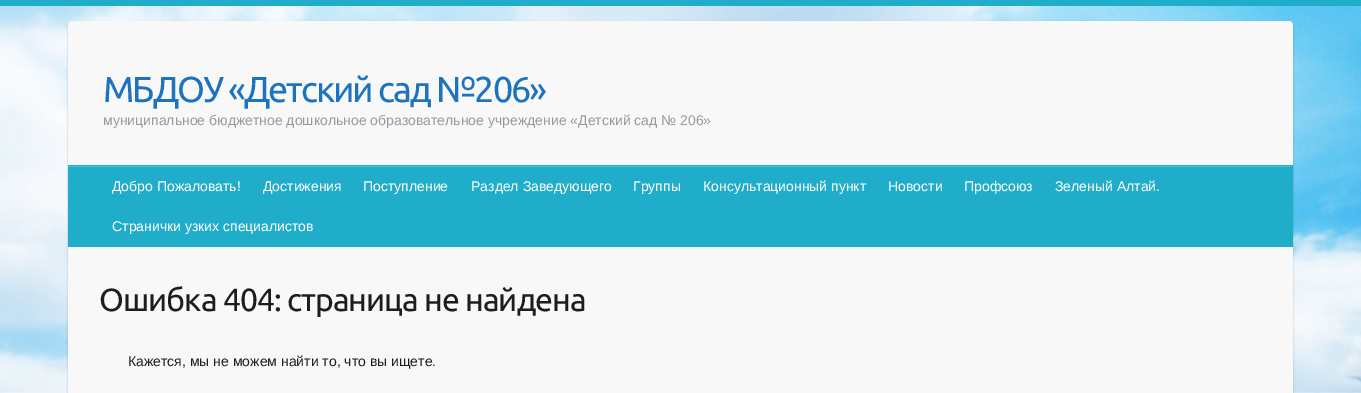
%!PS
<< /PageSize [1361 393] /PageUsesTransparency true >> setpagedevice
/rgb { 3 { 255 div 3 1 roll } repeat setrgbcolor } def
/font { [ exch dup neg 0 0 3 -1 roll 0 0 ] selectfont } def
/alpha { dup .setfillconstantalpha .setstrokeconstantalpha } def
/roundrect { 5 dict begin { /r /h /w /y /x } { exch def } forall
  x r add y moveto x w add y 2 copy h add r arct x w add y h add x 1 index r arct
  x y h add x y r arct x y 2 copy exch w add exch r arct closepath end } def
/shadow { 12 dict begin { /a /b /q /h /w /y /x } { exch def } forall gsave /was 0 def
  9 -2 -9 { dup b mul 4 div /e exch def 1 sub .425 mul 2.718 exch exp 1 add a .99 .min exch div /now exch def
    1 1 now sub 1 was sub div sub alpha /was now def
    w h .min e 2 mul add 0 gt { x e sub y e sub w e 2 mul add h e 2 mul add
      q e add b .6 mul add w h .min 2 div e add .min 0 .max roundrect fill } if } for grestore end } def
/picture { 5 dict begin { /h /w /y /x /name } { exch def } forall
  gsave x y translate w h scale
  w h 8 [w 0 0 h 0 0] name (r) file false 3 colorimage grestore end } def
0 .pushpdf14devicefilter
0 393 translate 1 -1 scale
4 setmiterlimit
255 255 255 rgb
0 0 1361 393 rectfill
(img/1.rgb) 0 6 1361 387 picture
32 173 201 rgb
0 0 1361 6 rectfill
0 0 0 rgb
68 22 1225 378 4 1 0.2 shadow
248 248 248 rgb
68 21 1225 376 4 roundrect fill
32 173 201 rgb
68 165 1225 82 rectfill
77 189 212 rgb
69 166 1223 1 rectfill
/Ubuntu-Regular 36 font
30 115 190 rgb
103 102 moveto -2 0 (МБДОУ «Детский сад №206») ashow
/LiberationSans-Regular 14 font
153 153 153 rgb
103 125 moveto (муниципальное бюджетное дошкольное образовательное учреждение «Детский сад № 206») show
255 255 255 rgb
[
  [(Добро Пожаловать!) 112 191]
  [(Достижения) 263 191]
  [(Поступление) 363 191]
  [(Раздел Заведующего) 471 191]
  [(Группы) 633 191]
  [(Консультационный пункт) 703 191]
  [(Новости) 888 191]
  [(Профсоюз) 964 191]
  [(Зеленый Алтай.) 1055 191]
  [(Странички узких специалистов) 112 231]
] { aload pop moveto show } forall
/Ubuntu-Regular 32 font
27 30 31 rgb
99 311 moveto -1 0 (Ошибка 404: страница не найдена) ashow
/LiberationSans-Regular 14 font
128 366 moveto (Кажется, мы не можем найти то, что вы ищете.) show
.poppdf14devicefilter showpage
